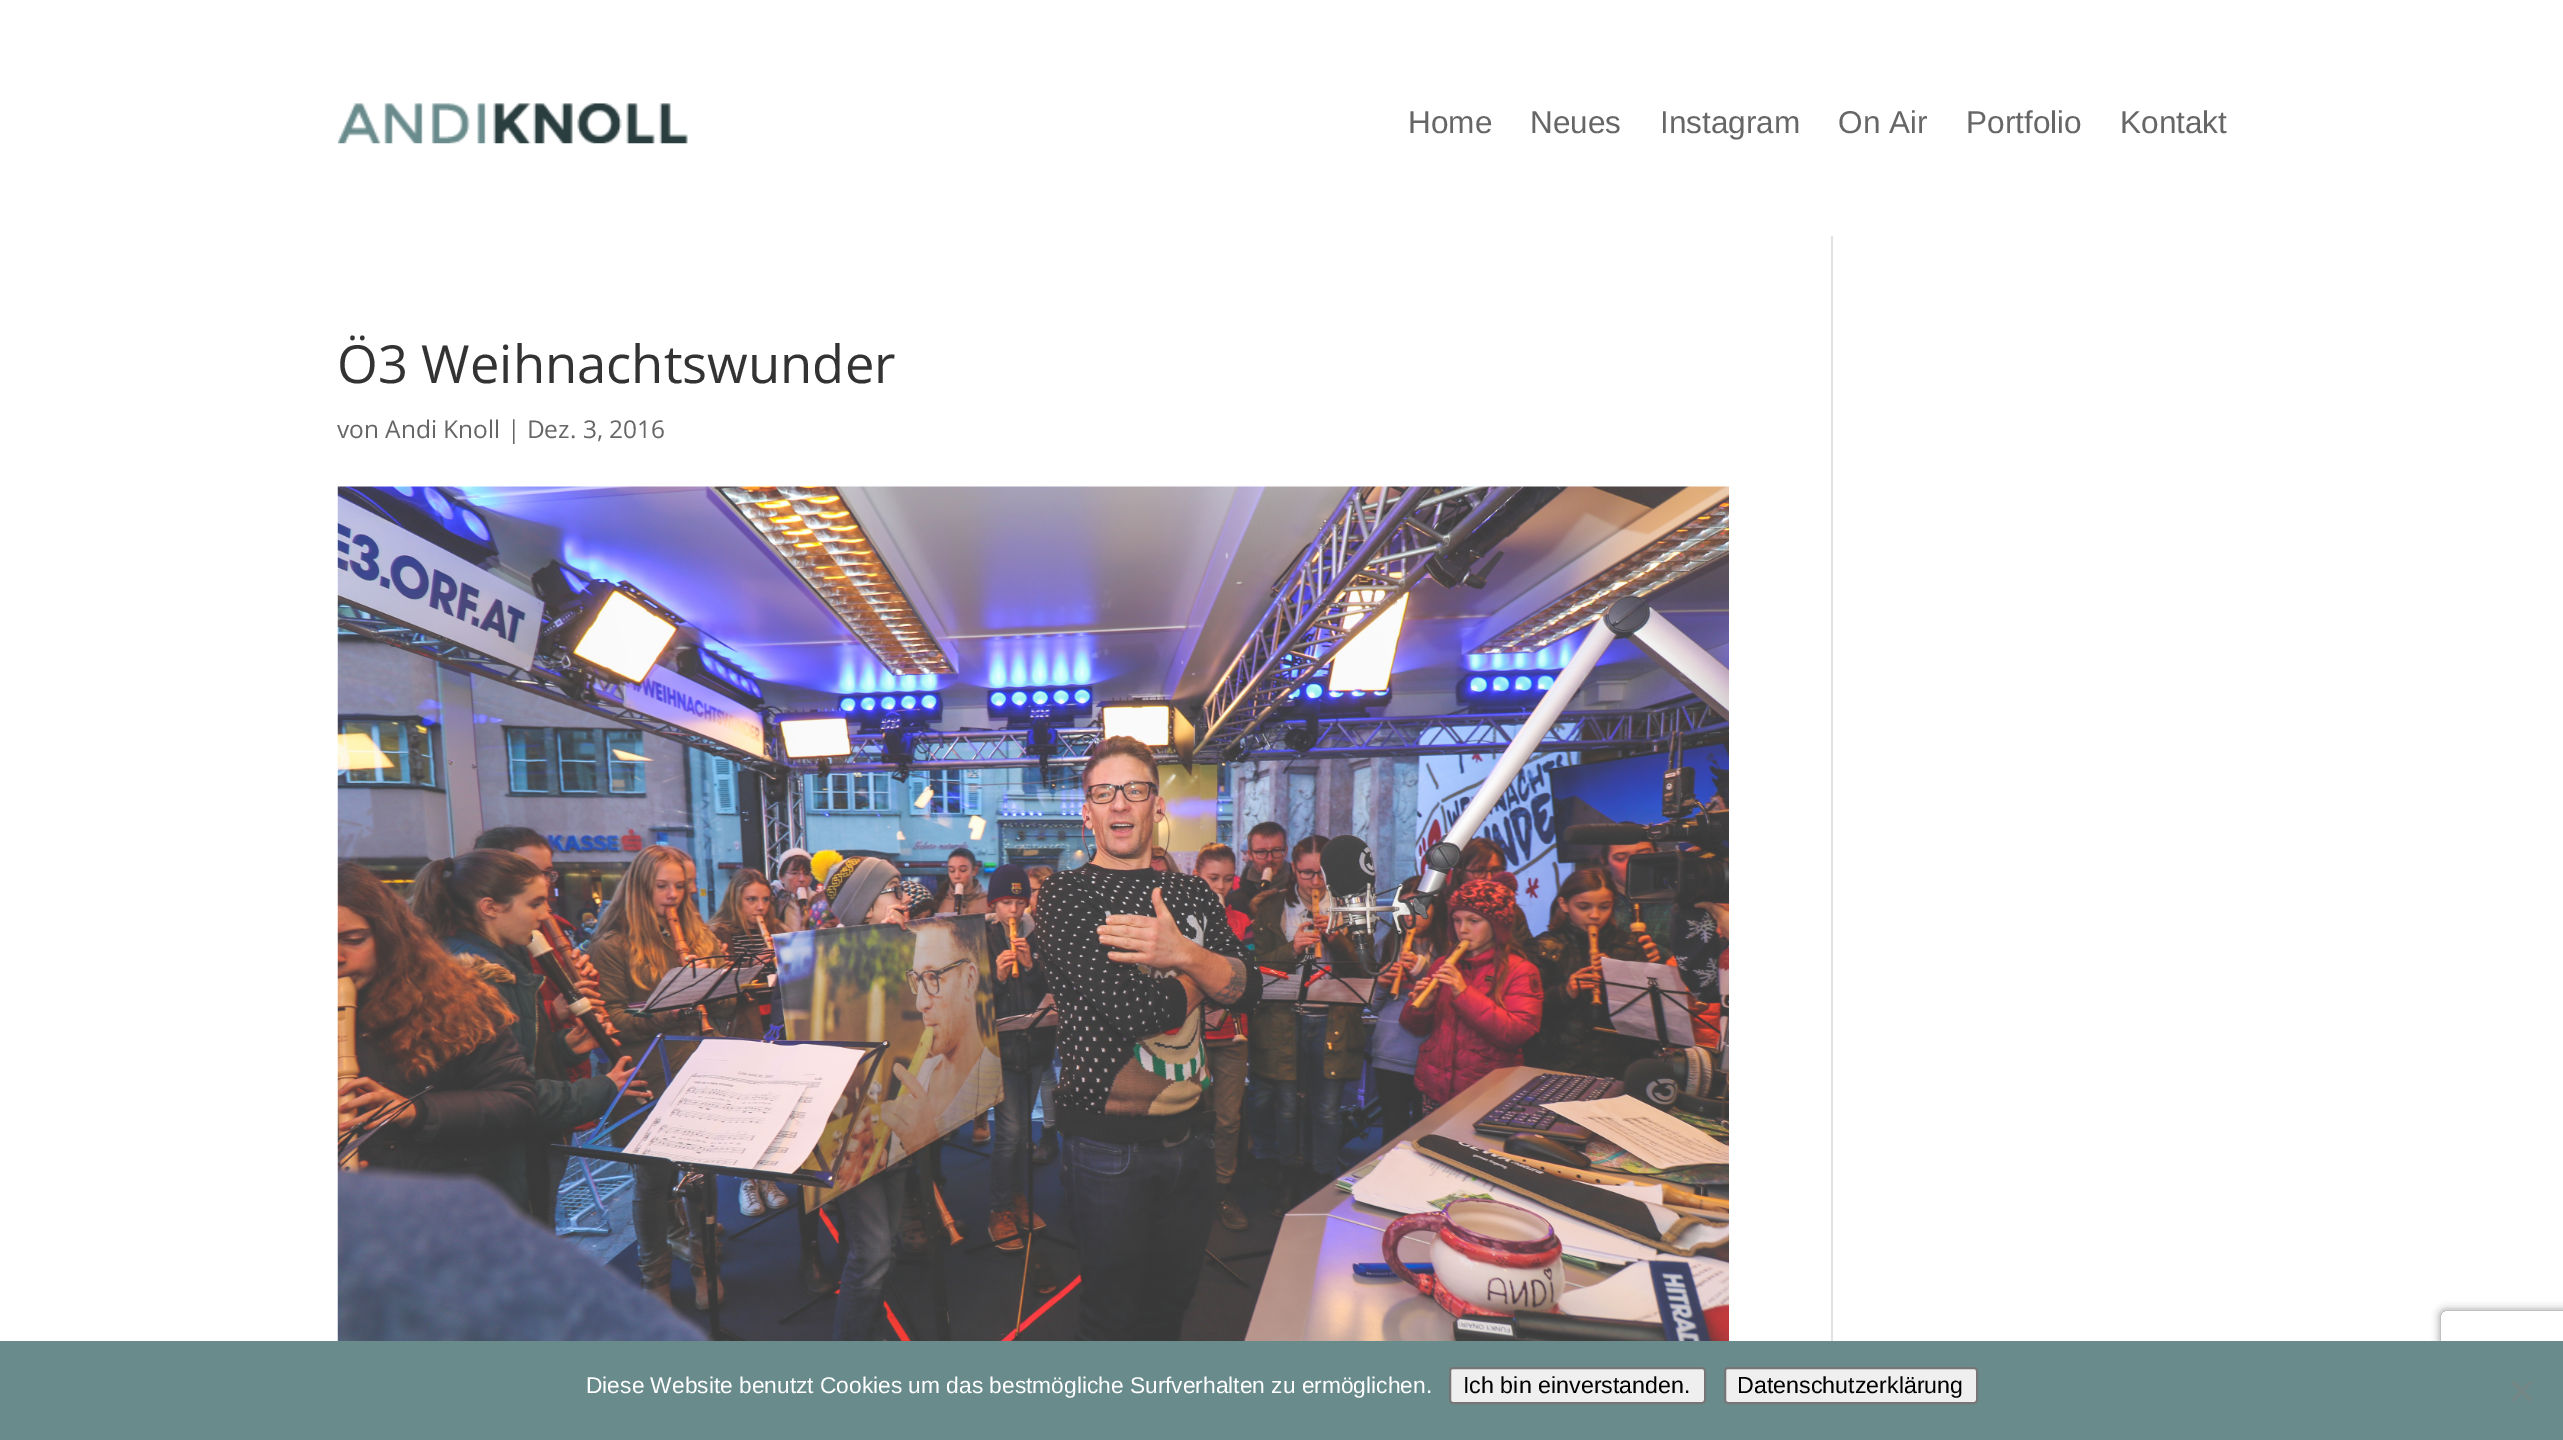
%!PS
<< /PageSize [2563 1440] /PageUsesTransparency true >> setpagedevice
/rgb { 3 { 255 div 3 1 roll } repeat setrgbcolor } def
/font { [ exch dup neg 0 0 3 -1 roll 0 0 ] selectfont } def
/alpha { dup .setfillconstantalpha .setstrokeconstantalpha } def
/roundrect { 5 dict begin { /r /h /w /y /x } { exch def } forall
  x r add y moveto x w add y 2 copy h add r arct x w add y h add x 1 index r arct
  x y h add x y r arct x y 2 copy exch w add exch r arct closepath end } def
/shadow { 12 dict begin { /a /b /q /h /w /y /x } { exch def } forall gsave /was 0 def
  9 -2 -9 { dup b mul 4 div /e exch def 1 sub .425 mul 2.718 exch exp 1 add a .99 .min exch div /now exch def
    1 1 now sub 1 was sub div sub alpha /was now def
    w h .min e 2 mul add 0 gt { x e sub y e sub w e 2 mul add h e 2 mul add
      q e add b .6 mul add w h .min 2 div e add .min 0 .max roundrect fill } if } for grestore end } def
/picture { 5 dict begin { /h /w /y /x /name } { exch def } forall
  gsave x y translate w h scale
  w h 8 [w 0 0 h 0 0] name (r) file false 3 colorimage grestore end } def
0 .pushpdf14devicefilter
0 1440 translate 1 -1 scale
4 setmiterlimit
255 255 255 rgb
0 0 2563 1440 rectfill
(img/1.rgb) 337 103 351 41 picture
(img/2.rgb) 337 486 1392 855 picture
226 226 226 rgb
1831 236 2 1105 rectfill
gsave
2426 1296 moveto 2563 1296 lineto 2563 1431 lineto 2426 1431 lineto closepath 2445 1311 moveto 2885 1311 lineto 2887 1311 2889 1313 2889 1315 curveto 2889 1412 lineto 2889 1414 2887 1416 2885 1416 curveto 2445 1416 lineto 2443 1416 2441 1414 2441 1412 curveto 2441 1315 lineto 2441 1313 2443 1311 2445 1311 curveto closepath eoclip newpath
128 128 128 rgb
2441 1311 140 105 4 4.5 1 shadow
grestore
105 139 140 rgb
0 1341 2563 99 rectfill
239 239 239 rgb
1450 1368 255 35 3 roundrect gsave fill grestore
118 118 118 rgb
2 setlinewidth
stroke
239 239 239 rgb
1725 1368 252 35 3 roundrect gsave fill grestore
118 118 118 rgb
stroke
117 134 134 rgb
2530 1380.5 moveto 2532.5 1383 lineto 2513.5 1402 lineto 2511 1399.5 lineto closepath fill
2511 1383 moveto 2513.5 1380.5 lineto 2532.5 1399.5 lineto 2530 1402 lineto closepath fill
/LiberationSans-Regular 31.5 font
102 102 102 rgb
[
  [(Home) 1408 133]
  [(Neues) 1530 133]
  [(Instagram) 1660 133]
  [(On Air) 1838 133]
  [(Portfolio) 1966 133]
  [(Kontakt) 2120 133]
] { aload pop moveto show } forall
/OpenSans-Regular 52.5 font
51 51 51 rgb
337 383 moveto (Ö3 Weihnachtswunder) show
/OpenSans-Regular 24.5 font
102 102 102 rgb
337 438 moveto (von Andi Knoll | Dez. 3, 2016) show
/LiberationSans-Regular 22.75 font
255 255 255 rgb
586 1393 moveto (Diese Website benutzt Cookies um das bestmögliche Surfverhalten zu ermöglichen.) show
/LiberationSans-Regular 23.25 font
0 0 0 rgb
1463 1393 moveto (Ich bin einverstanden.) show
1737 1393 moveto (Datenschutzerklärung) show
.poppdf14devicefilter showpage
